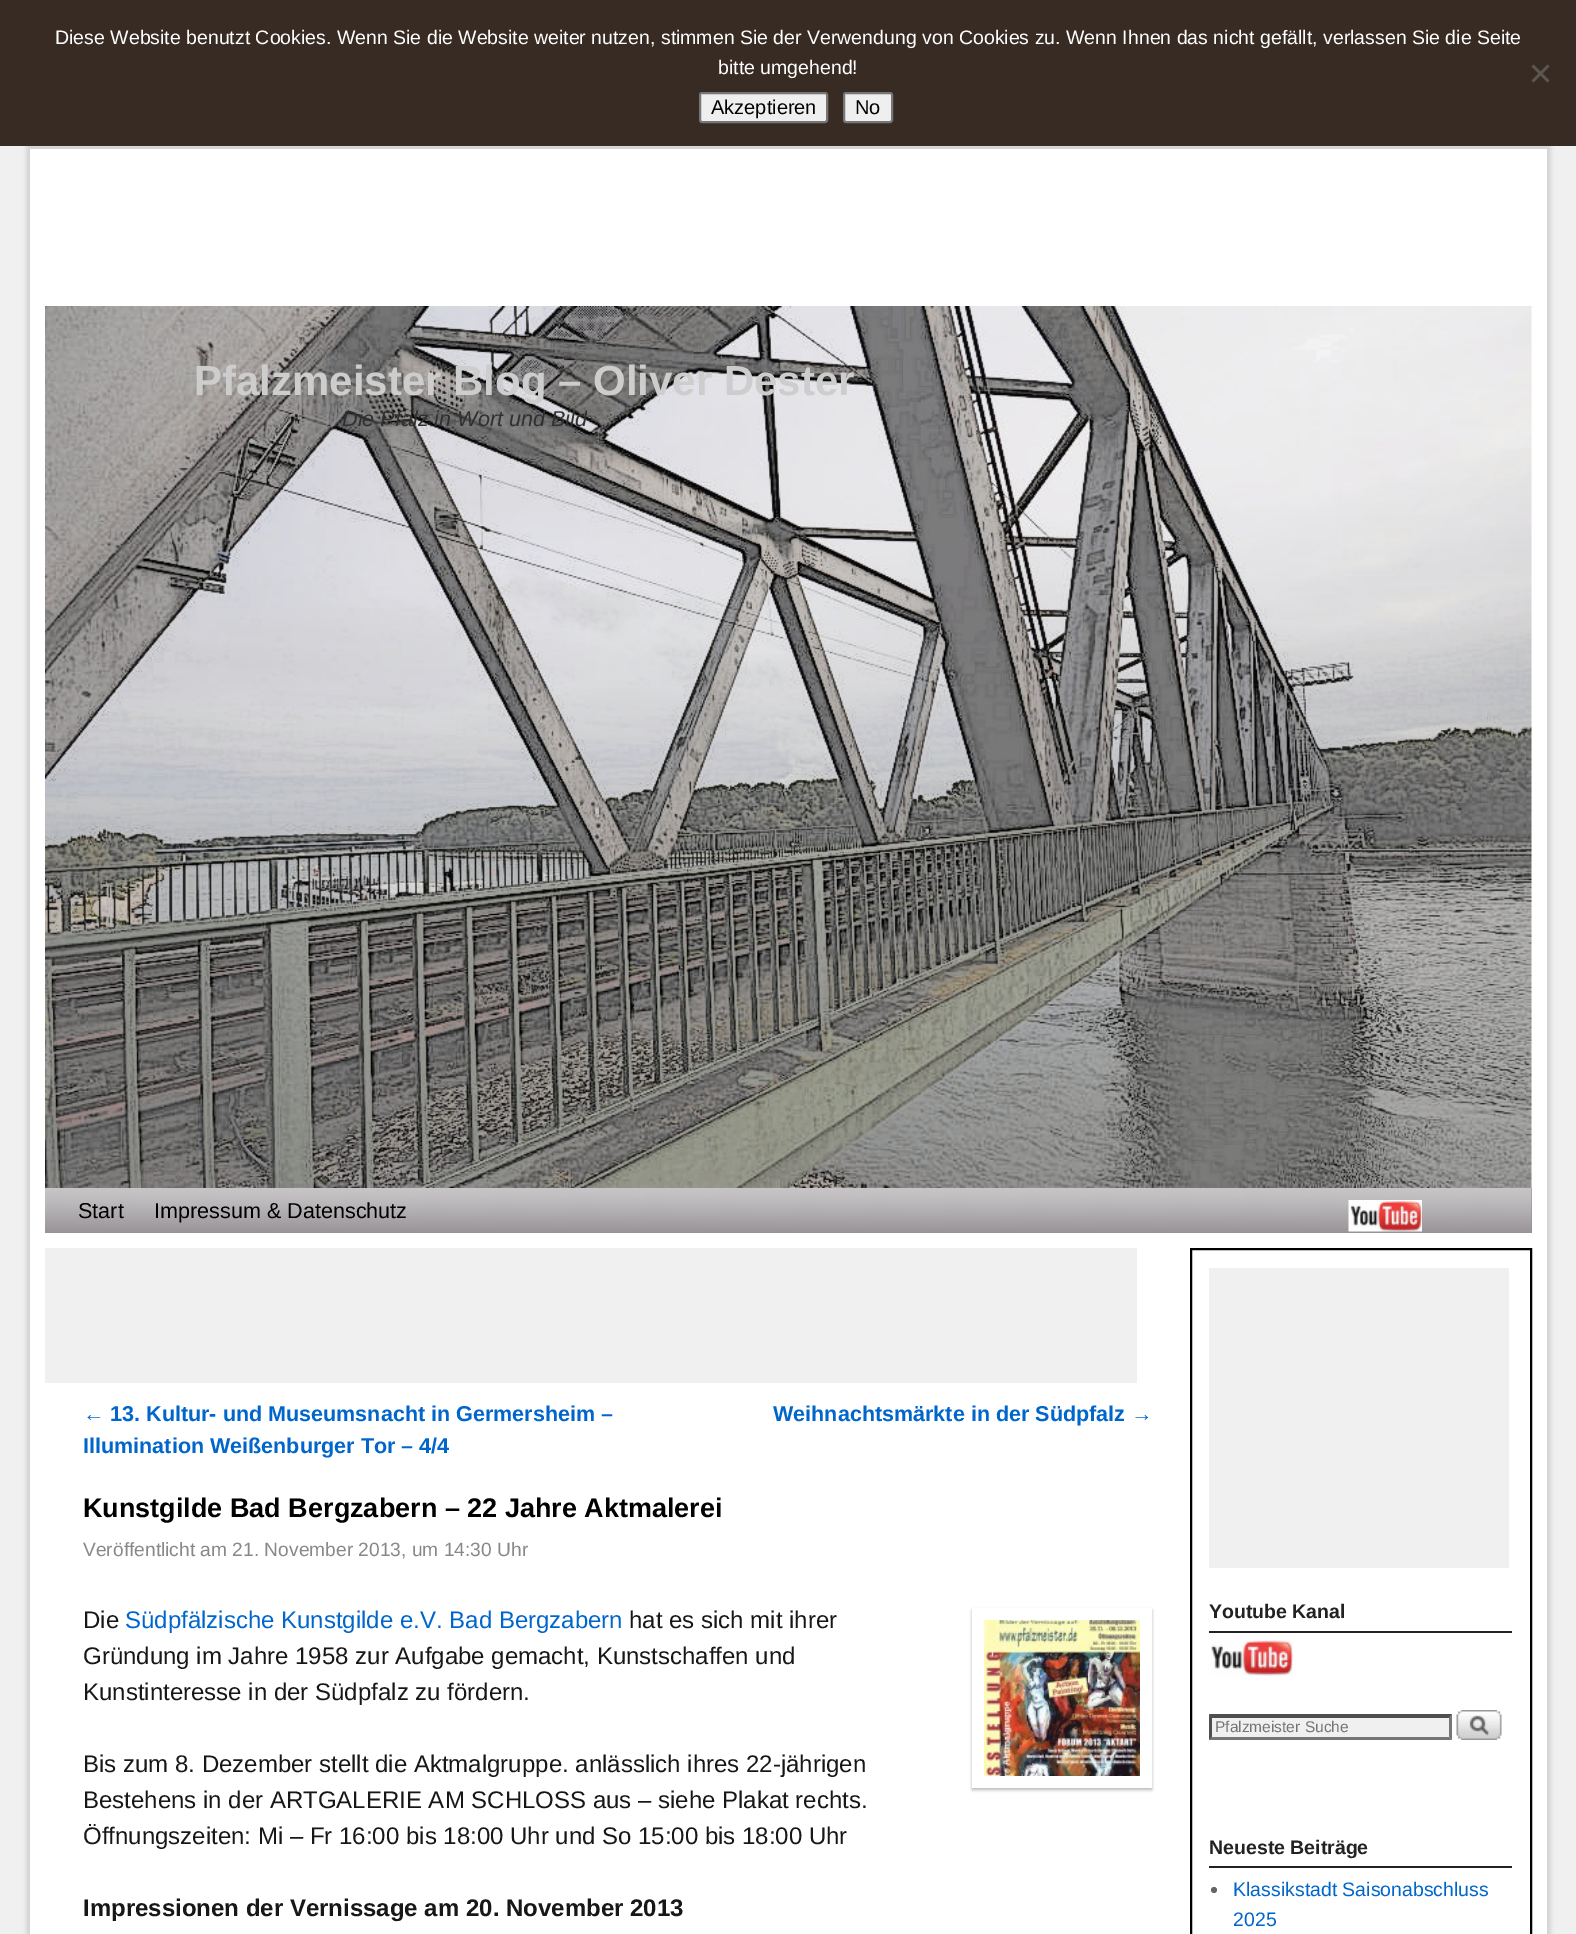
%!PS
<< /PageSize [1576 1934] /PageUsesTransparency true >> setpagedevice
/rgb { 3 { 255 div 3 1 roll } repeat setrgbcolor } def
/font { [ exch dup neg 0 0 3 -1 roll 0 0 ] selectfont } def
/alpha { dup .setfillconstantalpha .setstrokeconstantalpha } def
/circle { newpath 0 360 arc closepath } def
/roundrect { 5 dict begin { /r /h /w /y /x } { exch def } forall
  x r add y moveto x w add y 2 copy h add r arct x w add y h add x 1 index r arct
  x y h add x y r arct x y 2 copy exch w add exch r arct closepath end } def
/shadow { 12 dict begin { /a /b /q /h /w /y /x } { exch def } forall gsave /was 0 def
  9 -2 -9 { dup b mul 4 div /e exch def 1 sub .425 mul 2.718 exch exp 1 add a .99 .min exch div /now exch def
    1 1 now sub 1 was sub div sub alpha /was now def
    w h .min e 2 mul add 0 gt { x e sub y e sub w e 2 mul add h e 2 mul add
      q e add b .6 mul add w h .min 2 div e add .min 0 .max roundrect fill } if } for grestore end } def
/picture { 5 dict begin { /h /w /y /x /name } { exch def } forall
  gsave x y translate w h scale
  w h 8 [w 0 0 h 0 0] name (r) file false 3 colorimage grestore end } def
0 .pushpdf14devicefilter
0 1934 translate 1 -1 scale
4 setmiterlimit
240 240 240 rgb
0 0 1576 1934 rectfill
127 127 127 rgb
26 144 1525 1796 0 2 0.25 shadow
56 43 35 rgb
0 0 1576 146 rectfill
92 86 82 rgb
1547.5 64.5 moveto 1549.5 66.5 lineto 1533.5 82.5 lineto 1531.5 80.5 lineto closepath fill
1531.5 66.5 moveto 1533.5 64.5 lineto 1549.5 80.5 lineto 1547.5 82.5 lineto closepath fill
239 239 239 rgb
700 93 127 29 2 roundrect gsave fill grestore
118 118 118 rgb
2 setlinewidth
stroke
239 239 239 rgb
844 93 48 29 2 roundrect gsave fill grestore
118 118 118 rgb
stroke
255 255 255 rgb
30 149 1517 1785 rectfill
(img/1.rgb) 45 306 1487 882 picture
141 136 140 rgb
45 1188 1487 45 rectfill
(img/2.rgb) 45 1188 1487 45 picture
(img/3.rgb) 1348 1200 74 32 picture
240 240 240 rgb
45 1248 1092 135 rectfill
gsave
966 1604 moveto 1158 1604 lineto 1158 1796 lineto 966 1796 lineto closepath 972 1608 moveto 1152 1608 lineto 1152 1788 lineto 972 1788 lineto closepath eoclip newpath
187 187 187 rgb
972 1610 180 180 0 1.5 1 shadow
grestore
(img/4.rgb) 984 1620 156 156 picture
0 0 0 rgb
1191 1249 340 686 rectstroke
240 240 240 rgb
1209 1268 300 300 rectfill
34 34 34 rgb
1209 1631 303 2 rectfill
(img/5.rgb) 1211 1639 82 37 picture
240 240 240 rgb
1209 1715 243 25 rectfill
79 79 79 rgb
1209 1714 moveto 1452 1714 lineto 1449 1718 lineto 1212 1718 lineto closepath fill
118 118 118 rgb
1452 1714.5 moveto 1452 1740 lineto 1449 1737 lineto 1449 1717.5 lineto closepath fill
1452 1740 moveto 1209 1740 lineto 1212 1737 lineto 1449 1737 lineto closepath fill
79 79 79 rgb
1209 1740 moveto 1209 1714.5 lineto 1212 1717.5 lineto 1212 1737 lineto closepath fill
(img/6.rgb) 1456 1710 46 30 picture
34 34 34 rgb
1209 1866 303 2 rectfill
102 102 102 rgb
1214 1890 3 circle fill
/LiberationSans-Regular 19.5 font
255 255 255 rgb
55 44 moveto (Diese Website benutzt Cookies. Wenn Sie die Website weiter nutzen, stimmen Sie der Verwendung von Cookies zu. Wenn Ihnen das nicht gefällt, verlassen Sie die Seite) show
718 74 moveto (bitte umgehend!) show
/LiberationSans-Regular 20 font
0 0 0 rgb
711 114 moveto (Akzeptieren) show
855 114 moveto (No) show
/LiberationSans-Bold 42 font
206 205 205 rgb
194 395 moveto (Pfalzmeister Blog – Oliver Dester) show
gsave
342 404 245 31 rectclip
/LiberationSans-Italic 21.6 font
48 48 48 rgb
342 426 moveto (Die Pfalz in Wort und Bild) show
grestore
/LiberationSans-Regular 21.6 font
0 0 0 rgb
78 1218 moveto (Start) show
154 1218 moveto (Impressum & Datenschutz) show
/LiberationSans-Regular 21.55 font
0 102 204 rgb
83 1421 moveto (←) show
/LiberationSans-Bold 21.55 font
[
  [(13. Kultur- und Museumsnacht in Germersheim –) 110 1421]
  [(Illumination Weißenburger Tor – 4/4) 83 1453]
  [(Weihnachtsmärkte in der Südpfalz) 773 1421]
] { aload pop moveto show } forall
/LiberationSans-Regular 21.55 font
1131 1421 moveto (→) show
/LiberationSans-Bold 27 font
0 0 0 rgb
83 1517 moveto (Kunstgilde Bad Bergzabern – 22 Jahre Aktmalerei) show
/LiberationSans-Regular 19.2 font
136 136 136 rgb
83 1556 moveto (Veröffentlicht am 21. November 2013, um 14:30 Uhr) show
/LiberationSans-Regular 24 font
23 23 23 rgb
83 1628 moveto (Die) show
0 102 204 rgb
125 1628 moveto (Südpfälzische Kunstgilde e.V. Bad Bergzabern) show
23 23 23 rgb
[
  [(hat es sich mit ihrer) 629 1628]
  [(Gründung im Jahre 1958 zur Aufgabe gemacht, Kunstschaffen und) 83 1664]
  [(Kunstinteresse in der Südpfalz zu fördern.) 83 1700]
  [(Bis zum 8. Dezember stellt die Aktmalgruppe. anlässlich ihres 22-jährigen) 83 1772]
  [(Bestehens in der ARTGALERIE AM SCHLOSS aus – siehe Plakat rechts.) 83 1808]
  [(Öffnungszeiten: Mi – Fr 16:00 bis 18:00 Uhr und So 15:00 bis 18:00 Uhr) 83 1844]
] { aload pop moveto show } forall
/LiberationSans-Bold 24 font
83 1916 moveto (Impressionen der Vernissage am 20. November 2013) show
/LiberationSans-Bold 19.5 font
34 34 34 rgb
1209 1618 moveto (Youtube Kanal) show
/LiberationSans-Regular 15.5 font
117 117 117 rgb
1215 1732 moveto (Pfalzmeister Suche) show
/LiberationSans-Bold 19.5 font
34 34 34 rgb
1209 1854 moveto (Neueste Beiträge) show
/LiberationSans-Regular 19.5 font
0 102 204 rgb
1233 1896 moveto (Klassikstadt Saisonabschluss) show
1233 1926 moveto (2025) show
.poppdf14devicefilter showpage
